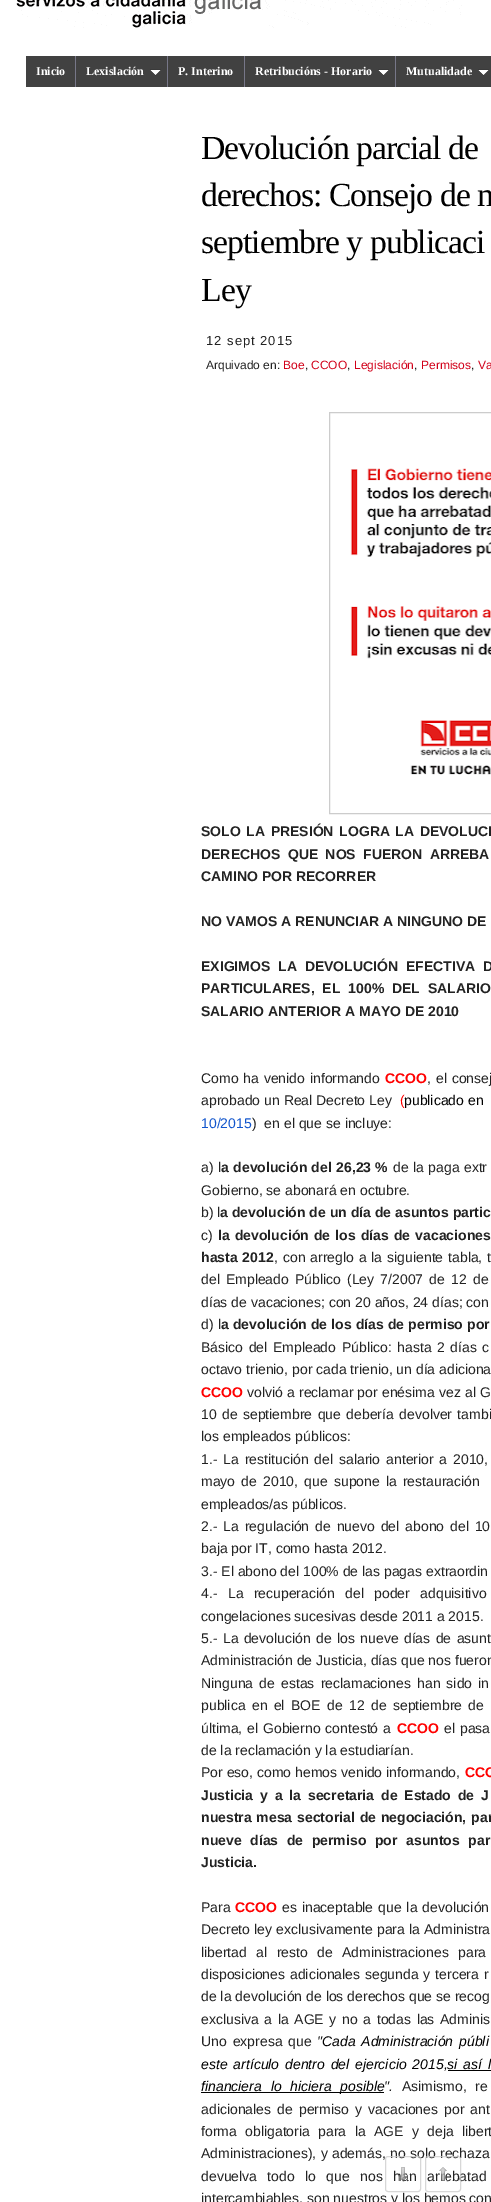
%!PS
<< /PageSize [491 2202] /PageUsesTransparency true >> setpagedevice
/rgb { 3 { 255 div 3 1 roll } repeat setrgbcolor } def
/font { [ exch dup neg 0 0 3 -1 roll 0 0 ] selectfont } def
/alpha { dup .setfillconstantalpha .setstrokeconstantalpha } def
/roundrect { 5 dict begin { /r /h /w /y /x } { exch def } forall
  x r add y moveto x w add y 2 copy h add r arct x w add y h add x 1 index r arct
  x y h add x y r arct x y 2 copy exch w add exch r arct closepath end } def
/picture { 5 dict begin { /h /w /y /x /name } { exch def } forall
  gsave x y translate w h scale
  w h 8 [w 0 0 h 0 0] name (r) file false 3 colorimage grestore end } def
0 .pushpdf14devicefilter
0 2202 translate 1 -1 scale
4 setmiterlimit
255 255 255 rgb
0 0 491 2202 rectfill
(img/1.rgb) 16 0 446 28 picture
[
  [26 56 49 31 65 65 65]
  [75 56 1 31 119 119 136]
  [76 56 91 31 65 65 65]
  [167 56 1 31 119 119 136]
] { aload pop rgb rectfill } forall
(img/2.rgb) 150 69 11 7 picture
[
  [168 56 76 31 65 65 65]
  [244 56 1 31 119 119 136]
  [245 56 150 31 65 65 65]
  [395 56 1 31 119 119 136]
] { aload pop rgb rectfill } forall
(img/2.rgb) 378 69 11 7 picture
65 65 65 rgb
396 56 95 31 rectfill
(img/2.rgb) 478 69 11 7 picture
204 204 204 rgb
329.5 412.5 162 401 rectstroke
(img/3.rgb) 350 468 141 307 picture
0 0 0 rgb
448 2070 43 1 rectfill
201 2092 183 1 rectfill
/LiberationSerif-Bold 12 font
255 255 255 rgb
[
  [(Inicio) 36 75]
  [(Lexislación) 86 75]
  [(P. Interino) 178 75]
  [(Retribucións - Horario) 255 75]
  [(Mutualidade) 406 75]
] { aload pop moveto show } forall
/LiberationSerif-Regular 33.75 font
0 0 0 rgb
201 159 moveto -1 0 (Devolución parcial de) ashow
201 206 moveto -1 0 (derechos: Consejo de m) ashow
201 253 moveto -1 0 (septiembre y publicaci) ashow
201 301 moveto -1 0 (Ley) ashow
/LiberationSans-Regular 13 font
34 34 34 rgb
206 345 moveto 1 0 (12 sept 2015) ashow
/LiberationSans-Regular 12 font
206 369 moveto (Arquivado en:) show
209 0 25 rgb
283 369 moveto (Boe) show
34 34 34 rgb
305 369 moveto (,) show
209 0 25 rgb
311 369 moveto (CCOO) show
34 34 34 rgb
347 369 moveto (,) show
209 0 25 rgb
354 369 moveto (Legislación) show
34 34 34 rgb
414 369 moveto (,) show
209 0 25 rgb
421 369 moveto (Permisos) show
34 34 34 rgb
471 369 moveto (,) show
209 0 25 rgb
478 369 moveto (Va) show
/LiberationSans-Bold 14 font
34 34 34 rgb
201 836 moveto 1.75 0 32 (SOLO LA PRESIÓN LOGRA LA DEVOLUCI) widthshow
201 859 moveto 3.5 0 32 (DERECHOS QUE NOS FUERON ARREBA) widthshow
201 881 moveto (CAMINO POR RECORRER) show
201 926 moveto (NO VAMOS A RENUNCIAR A NINGUNO DE) show
201 971 moveto 4 0 32 (EXIGIMOS LA DEVOLUCIÓN EFECTIVA D) widthshow
201 993 moveto 4 0 32 (PARTICULARES, EL 100% DEL SALARIO) widthshow
201 1016 moveto (SALARIO ANTERIOR A MAYO DE 2010) show
/LiberationSans-Regular 14 font
201 1083 moveto 1 0 32 (Como ha venido informando) widthshow
/LiberationSans-Bold 14 font
255 0 0 rgb
385 1083 moveto (CCOO) show
/LiberationSans-Regular 14 font
34 34 34 rgb
427 1083 moveto 1 0 32 (, el consej) widthshow
201 1105 moveto (aprobado un Real Decreto Ley) show
255 0 0 rgb
400 1105 moveto (\() show
0 0 0 rgb
404 1105 moveto (publicado en) show
17 85 204 rgb
201 1128 moveto (10/2015) show
34 34 34 rgb
252 1128 moveto (\)  en el que se incluye:) show
201 1172 moveto 0.5 0 32 (a\) l) widthshow
/LiberationSans-Bold 14 font
221 1172 moveto 0.5 0 32 (a devolución del 26,23 %) widthshow
/LiberationSans-Regular 14 font
393 1172 moveto 0.5 0 32 (de la paga extr) widthshow
201 1195 moveto (Gobierno, se abonará en octubre.) show
201 1217 moveto (b\) l) show
/LiberationSans-Bold 14 font
220 1217 moveto (a devolución de un día de asuntos partic) show
/LiberationSans-Regular 14 font
201 1240 moveto (c\)) show
/LiberationSans-Bold 14 font
218 1240 moveto 1.25 0 32 (la devolución de los días de vacaciones) widthshow
201 1262 moveto 1 0 32 (hasta 2012) widthshow
/LiberationSans-Regular 14 font
274 1262 moveto 1 0 32 (, con arreglo a la siguiente tabla, t) widthshow
201 1284 moveto 2.25 0 32 (del Empleado Público \(Ley 7/2007 de 12 de) widthshow
201 1307 moveto (días de vacaciones; con 20 años, 24 días; con) show
201 1329 moveto 0.25 0 32 (d\) l) widthshow
/LiberationSans-Bold 14 font
221 1329 moveto 0.25 0 32 (a devolución de los días de permiso por) widthshow
/LiberationSans-Regular 14 font
201 1352 moveto 1.75 0 32 (Básico del Empleado Público: hasta 2 días c) widthshow
201 1374 moveto (octavo trienio, por cada trienio, un día adiciona) show
/LiberationSans-Bold 14 font
255 0 0 rgb
201 1397 moveto (CCOO) show
/LiberationSans-Regular 14 font
34 34 34 rgb
247 1397 moveto 0.25 0 32 (volvió a reclamar por enésima vez al G) widthshow
201 1419 moveto 1.5 0 32 (10 de septiembre que debería devolver tambi) widthshow
201 1441 moveto (los empleados públicos:) show
201 1464 moveto 2 0 32 (1.- La restitución del salario anterior a 2010,) widthshow
201 1486 moveto 2.25 0 32 (mayo de 2010, que supone la restauración) widthshow
201 1509 moveto (empleados/as públicos.) show
201 1531 moveto 2 0 32 (2.- La regulación de nuevo del abono del 10) widthshow
201 1553 moveto (baja por IT, como hasta 2012.) show
201 1576 moveto (3.- El abono del 100% de las pagas extraordin) show
201 1598 moveto 6.5 0 32 (4.- La recuperación del poder adquisitivo) widthshow
201 1621 moveto (congelaciones sucesivas desde 2011 a 2015.) show
201 1643 moveto 1.5 0 32 (5.- La devolución de los nueve días de asunt) widthshow
201 1665 moveto (Administración de Justicia, días que nos fueron) show
201 1688 moveto 2.25 0 32 (Ninguna de estas reclamaciones han sido in) widthshow
201 1710 moveto 2.5 0 32 (publica en el BOE de 12 de septiembre de) widthshow
201 1733 moveto 1 0 32 (última, el Gobierno contestó a) widthshow
/LiberationSans-Bold 14 font
255 0 0 rgb
397 1733 moveto (CCOO) show
/LiberationSans-Regular 14 font
34 34 34 rgb
444 1733 moveto 1 0 32 (el pasa) widthshow
201 1755 moveto (de la reclamación y la estudiarían.) show
201 1777 moveto (Por eso, como hemos venido informando,) show
/LiberationSans-Bold 14 font
255 0 0 rgb
465 1777 moveto (CCO) show
34 34 34 rgb
201 1800 moveto 3 0 32 (Justicia y a la secretaria de Estado de J) widthshow
201 1822 moveto 1 0 32 (nuestra mesa sectorial de negociación, par) widthshow
201 1845 moveto 4.75 0 32 (nueve días de permiso por asuntos par) widthshow
201 1867 moveto (Justicia.) show
/LiberationSans-Regular 14 font
201 1912 moveto (Para) show
/LiberationSans-Bold 14 font
255 0 0 rgb
235 1912 moveto (CCOO) show
/LiberationSans-Regular 14 font
34 34 34 rgb
282 1912 moveto 1 0 32 (es inaceptable que la devolución) widthshow
201 1934 moveto 0.25 0 32 (Decreto ley exclusivamente para la Administra) widthshow
201 1957 moveto 5.5 0 32 (libertad al resto de Administraciones para) widthshow
201 1979 moveto 1 0 32 (disposiciones adicionales segunda y tercera r) widthshow
201 2001 moveto (de la devolución de los derechos que se recog) show
201 2024 moveto 1.75 0 32 (exclusiva a la AGE y no a todas las Adminis) widthshow
201 2046 moveto 2 0 32 (Uno expresa que) widthshow
/LiberationSans-Italic 14 font
317 2046 moveto (") show
0 0 0 rgb
322 2046 moveto 2 0 32 (Cada Administración públi) widthshow
201 2069 moveto 2 0 32 (este artículo) widthshow
285 2069 moveto 2 0 32 (dentro del ejercicio 2015,si así l) widthshow
201 2091 moveto 5 0 32 (financiera lo hiciera posible) widthshow
34 34 34 rgb
384 2091 moveto (".) show
/LiberationSans-Regular 14 font
402 2091 moveto 5 0 32 (Asimismo, re) widthshow
201 2114 moveto 2.25 0 32 (adicionales de permiso y vacaciones por ant) widthshow
201 2136 moveto 4.5 0 32 (forma obligatoria para la AGE y deja libert) widthshow
201 2158 moveto 0.5 0 32 (Administraciones\), y además, no solo rechaza) widthshow
201 2181 moveto 6.5 0 32 (devuelva todo lo que nos han arrebatad) widthshow
201 2203 moveto (intercambiables, son nuestros y los hemos con) show
(img/4.rgb) 399 2167 8 14 picture
0.78 alpha
204 204 204 rgb
385.5 2156.5 35 35 2.5 roundrect stroke
1 alpha
(img/5.rgb) 439 2167 8 14 picture
0.78 alpha
425.5 2156.5 35 35 2.5 roundrect stroke
.poppdf14devicefilter showpage
